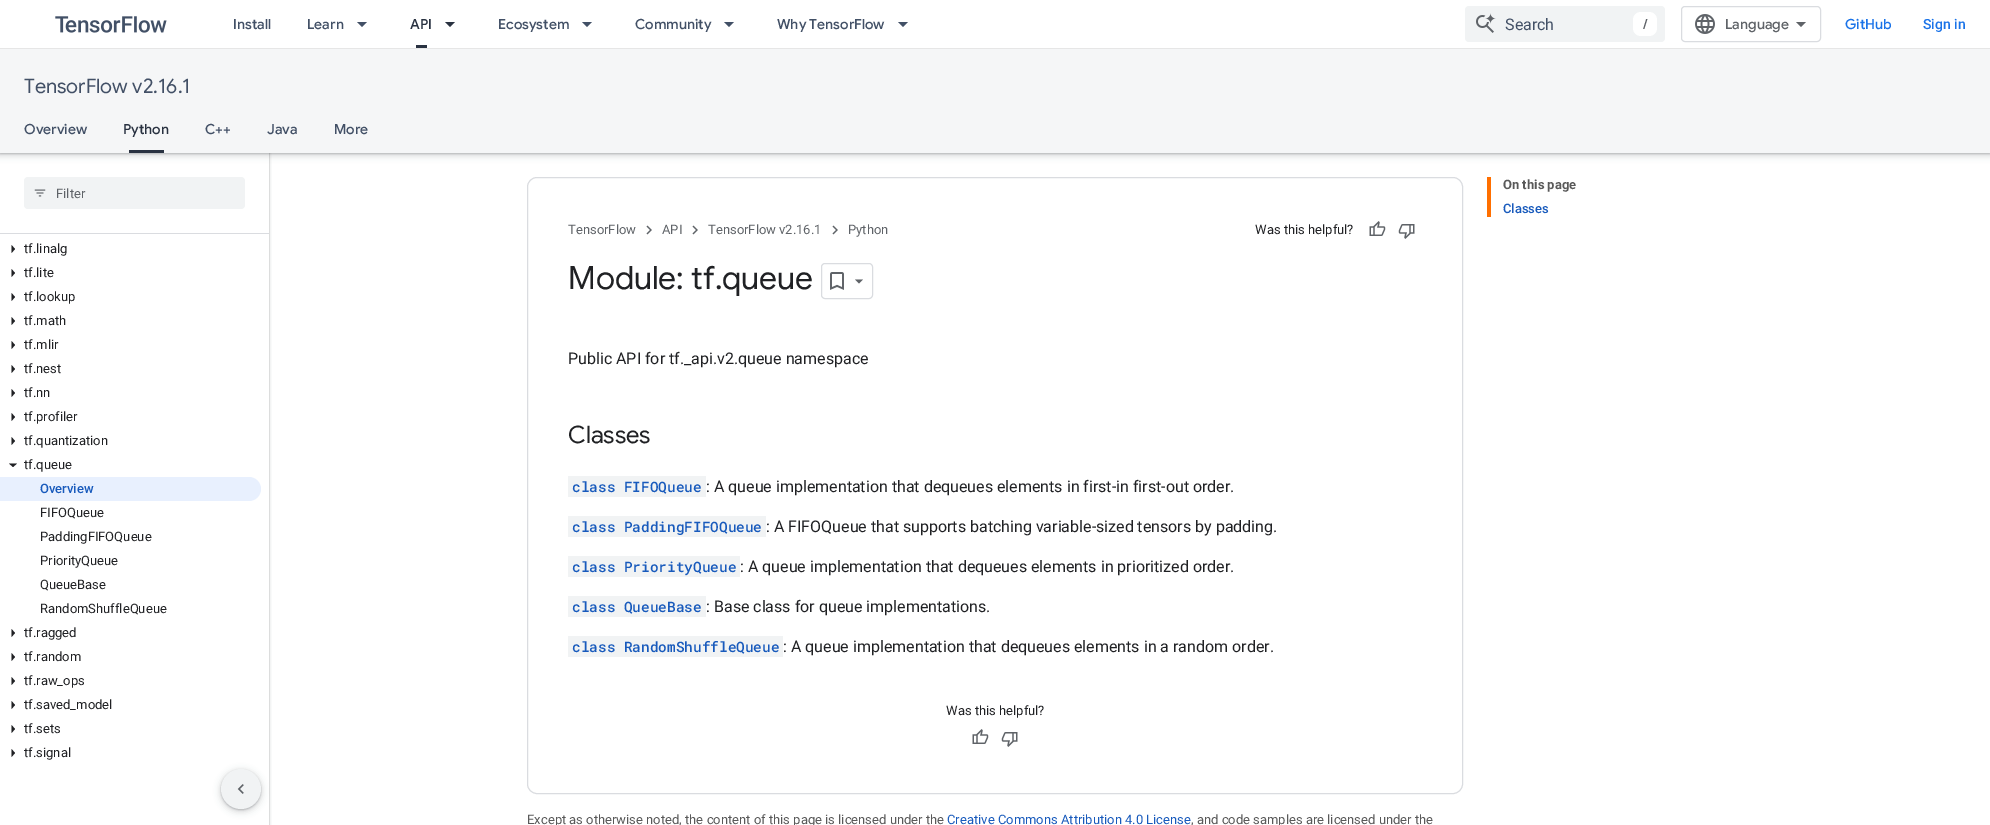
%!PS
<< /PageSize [1990 825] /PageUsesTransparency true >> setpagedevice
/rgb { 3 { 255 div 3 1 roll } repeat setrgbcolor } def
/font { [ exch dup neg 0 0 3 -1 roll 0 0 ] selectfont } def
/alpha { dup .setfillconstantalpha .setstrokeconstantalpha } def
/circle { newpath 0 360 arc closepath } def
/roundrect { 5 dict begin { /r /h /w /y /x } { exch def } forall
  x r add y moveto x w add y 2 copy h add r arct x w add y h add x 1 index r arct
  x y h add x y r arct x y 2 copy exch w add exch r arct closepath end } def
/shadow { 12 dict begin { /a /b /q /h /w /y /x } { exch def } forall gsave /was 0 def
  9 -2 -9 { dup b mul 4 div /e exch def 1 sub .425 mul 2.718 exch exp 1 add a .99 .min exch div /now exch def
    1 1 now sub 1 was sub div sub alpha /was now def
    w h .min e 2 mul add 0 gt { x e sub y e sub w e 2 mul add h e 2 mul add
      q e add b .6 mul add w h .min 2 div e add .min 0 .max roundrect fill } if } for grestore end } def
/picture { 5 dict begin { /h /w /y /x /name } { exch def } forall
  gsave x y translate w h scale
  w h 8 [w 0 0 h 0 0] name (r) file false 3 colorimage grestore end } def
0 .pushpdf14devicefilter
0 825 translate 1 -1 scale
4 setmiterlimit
255 255 255 rgb
0 0 1990 825 rectfill
gsave
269 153 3 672 rectclip
60 64 67 rgb
-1 0 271 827 0 1.5 0.15 shadow
grestore
gsave
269 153 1 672 rectclip
60 64 67 rgb
0 1 269 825 0 1 0.3 shadow
grestore
60 64 67 rgb
-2 49 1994 108 0 3 0.15 shadow
0 50 1990 104 0 1 0.3 shadow
255 255 255 rgb
0 0 1990 48 rectfill
230 230 230 rgb
0 48 1990 1 rectfill
(img/1.rgb) 55 16 112 17 picture
66 80 102 rgb
357 22 moveto 367 22 lineto 362 27 lineto closepath fill
41 50 65 rgb
416 45 11 3 rectfill
445 22 moveto 455 22 lineto 450 27 lineto closepath fill
66 80 102 rgb
582 22 moveto 592 22 lineto 587 27 lineto closepath fill
724 22 moveto 734 22 lineto 729 27 lineto closepath fill
898 22 moveto 908 22 lineto 903 27 lineto closepath fill
241 243 244 rgb
1465 6 200 36 4 roundrect fill
(img/2.rgb) 1476 13 20 20 picture
255 255 255 rgb
1633 12 24 24 8 roundrect fill
218 220 224 rgb
1681.5 6.5 139 35 3.5 roundrect stroke
(img/3.rgb) 1695 14 20 20 picture
95 99 104 rgb
1801 27 moveto 1796 22 lineto 1806 22 lineto closepath fill
[
  [0 49 1990 104 245 246 247]
  [129 150 35 3 41 50 65]
  [0 233 269 1 218 220 224]
] { aload pop rgb rectfill } forall
241 243 244 rgb
24 177 221 32 4 roundrect fill
(img/4.rgb) 34 189 12 8 picture
32 33 36 rgb
11.5 253 moveto 11.5 245 lineto 15 249 lineto closepath fill
11.5 277 moveto 11.5 269 lineto 15 273 lineto closepath fill
11.5 301 moveto 11.5 293 lineto 15 297 lineto closepath fill
11.5 325 moveto 11.5 317 lineto 15 321 lineto closepath fill
11.5 349 moveto 11.5 341 lineto 15 345 lineto closepath fill
11.5 373 moveto 11.5 365 lineto 15 369 lineto closepath fill
11.5 397 moveto 11.5 389 lineto 15 393 lineto closepath fill
11.5 421 moveto 11.5 413 lineto 15 417 lineto closepath fill
11.5 445 moveto 11.5 437 lineto 15 441 lineto closepath fill
9 463.5 moveto 17 463.5 lineto 13 467 lineto closepath fill
232 240 254 rgb
0 477 moveto 249 477 lineto 255.5 477 261 482.5 261 489 curveto 261 495.5 255.5 501 249 501 curveto 0 501 lineto closepath fill
32 33 36 rgb
11.5 637 moveto 11.5 629 lineto 15 633 lineto closepath fill
11.5 661 moveto 11.5 653 lineto 15 657 lineto closepath fill
11.5 685 moveto 11.5 677 lineto 15 681 lineto closepath fill
11.5 709 moveto 11.5 701 lineto 15 705 lineto closepath fill
11.5 733 moveto 11.5 725 lineto 15 729 lineto closepath fill
11.5 757 moveto 11.5 749 lineto 15 753 lineto closepath fill
255 111 0 rgb
1487 177 4 40 rectfill
218 220 224 rgb
527.5 177.5 935 616 9.5 roundrect stroke
(img/5.rgb) 646 225 6 10 picture
(img/5.rgb) 692 225 6 10 picture
(img/5.rgb) 832 225 6 10 picture
(img/6.rgb) 1369 221 17 15 picture
(img/7.rgb) 1398 224 17 15 picture
821.5 263.5 51 35 3.5 roundrect stroke
(img/8.rgb) 830 272 14 18 picture
95 99 104 rgb
855 279.5 moveto 863 279.5 lineto 859 283.5 lineto closepath fill
[
  [568 476 138 21 241 243 244]
  [568 516 198 21 241 243 244]
  [568 556 172 21 241 243 244]
  [568 596 138 21 241 243 244]
  [568 636 215 21 241 243 244]
] { aload pop rgb rectfill } forall
(img/6.rgb) 972 729 17 15 picture
(img/7.rgb) 1001 732 17 15 picture
60 64 67 rgb
219 769 44 44 22 3 0.15 shadow
221 770 40 40 20 1 0.3 shadow
241 243 244 rgb
241 789 20 circle fill
(img/9.rgb) 237 784 7 10 picture
/GoogleSans-Medium 14 font
66 80 102 rgb
233 29 moveto (Install) show
307 29 moveto (Learn) show
41 50 65 rgb
410 29 moveto (API) show
66 80 102 rgb
[
  [(Ecosystem) 498 29]
  [(Community) 635 29]
  [(Why TensorFlow) 777 29]
] { aload pop moveto show } forall
/Roboto-Regular 16 font
1505 30 moveto (Search) show
/GoogleSans-Medium 14 font
95 99 104 rgb
1643 29 moveto (/) show
1725 29 moveto (Language) show
26 115 232 rgb
1845 29 moveto (GitHub) show
/Roboto-Medium 14 font
1923 29 moveto (Sign in) show
/GoogleSans-Regular 20 font
66 80 102 rgb
24 93 moveto (TensorFlow v2.16.1) show
/GoogleSans-Medium 14 font
24 134 moveto (Overview) show
41 50 65 rgb
123 134 moveto (Python) show
66 80 102 rgb
[
  [(C++) 205 134]
  [(Java) 267 134]
  [(More) 334 134]
] { aload pop moveto show } forall
/Roboto-Regular 13 font
95 99 104 rgb
56 198 moveto (Filter) show
32 33 36 rgb
[
  [(tf.linalg) 24 253]
  [(tf.lite) 24 277]
  [(tf.lookup) 24 301]
  [(tf.math) 24 325]
  [(tf.mlir) 24 349]
  [(tf.nest) 24 373]
  [(tf.nn) 24 397]
  [(tf.profiler) 24 421]
  [(tf.quantization) 24 445]
  [(tf.queue) 24 469]
] { aload pop moveto show } forall
/Roboto-Medium 13 font
24 90 188 rgb
40 493 moveto (Overview) show
/Roboto-Regular 13 font
32 33 36 rgb
[
  [(FIFOQueue) 40 517]
  [(PaddingFIFOQueue) 40 541]
  [(PriorityQueue) 40 565]
  [(QueueBase) 40 589]
  [(RandomShuffleQueue) 40 613]
  [(tf.ragged) 24 637]
  [(tf.random) 24 661]
  [(tf.raw_ops) 24 685]
  [(tf.saved_model) 24 709]
  [(tf.sets) 24 733]
  [(tf.signal) 24 757]
] { aload pop moveto show } forall
/Roboto-Bold 13 font
89 89 89 rgb
1503 189 moveto (On this page) show
/Roboto-Medium 13 font
24 90 188 rgb
1503 213 moveto (Classes) show
/Roboto-Regular 13 font
95 99 104 rgb
[
  [(TensorFlow) 568 234]
  [(API) 662 234]
  [(TensorFlow v2.16.1) 708 234]
  [(Python) 848 234]
] { aload pop moveto show } forall
32 33 36 rgb
1255 234 moveto (Was this helpful?) show
/GoogleSans-Regular 32 font
568 289 moveto (Module: tf.queue) show
/Roboto-Regular 16 font
568 364 moveto (Public API for tf._api.v2.queue namespace) show
/GoogleSans-Regular 24 font
568 443 moveto (Classes) show
/RobotoMono-Medium 14.4 font
24 90 188 rgb
572 492 moveto (class FIFOQueue) show
/Roboto-Regular 16 font
32 33 36 rgb
706 492 moveto (: A queue implementation that dequeues elements in first-in first-out order.) show
/RobotoMono-Medium 14.4 font
24 90 188 rgb
572 532 moveto (class PaddingFIFOQueue) show
/Roboto-Regular 16 font
32 33 36 rgb
766 532 moveto (: A FIFOQueue that supports batching variable-sized tensors by padding.) show
/RobotoMono-Medium 14.4 font
24 90 188 rgb
572 572 moveto (class PriorityQueue) show
/Roboto-Regular 16 font
32 33 36 rgb
740 572 moveto (: A queue implementation that dequeues elements in prioritized order.) show
/RobotoMono-Medium 14.4 font
24 90 188 rgb
572 612 moveto (class QueueBase) show
/Roboto-Regular 16 font
32 33 36 rgb
706 612 moveto (: Base class for queue implementations.) show
/RobotoMono-Medium 14.4 font
24 90 188 rgb
572 652 moveto (class RandomShuffleQueue) show
/Roboto-Regular 16 font
32 33 36 rgb
783 652 moveto (: A queue implementation that dequeues elements in a random order.) show
/Roboto-Regular 13 font
946 715 moveto (Was this helpful?) show
89 89 89 rgb
527 824 moveto (Except as otherwise noted, the content of this page is licensed under the) show
24 90 188 rgb
947 824 moveto (Creative Commons Attribution 4.0 License) show
89 89 89 rgb
1191 824 moveto (, and code samples are licensed under the) show
.poppdf14devicefilter showpage
